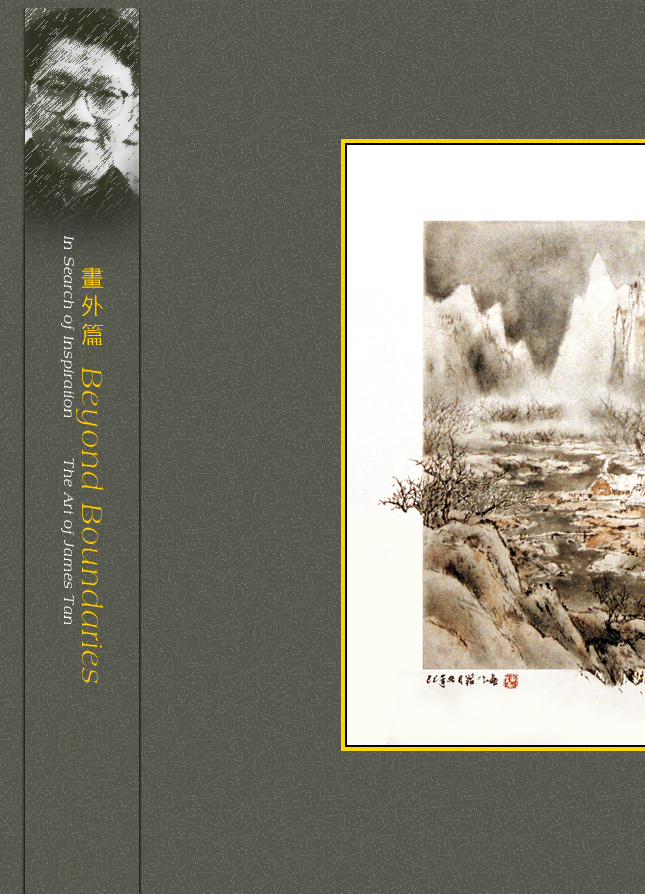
%!PS
<< /PageSize [645 894] >> setpagedevice
/rgb { 3 { 255 div 3 1 roll } repeat setrgbcolor } def
/picture { 5 dict begin { /h /w /y /x /name } { exch def } forall
  gsave x y translate w h scale
  w h 8 [w 0 0 h 0 0] name (r) file false 3 colorimage grestore end } def
0 894 translate 1 -1 scale
4 setmiterlimit
255 255 255 rgb
0 0 645 894 rectfill
(img/1.rgb) 0 0 645 894 picture
(img/2.rgb) 8 8 150 886 picture
[
  [341 139 304 2 250 214 5]
  [341 749 304 2 250 214 5]
  [341 139 2 612 250 214 5]
  [343 141 302 2 250 214 5]
  [343 747 302 2 250 214 5]
  [343 141 2 608 250 214 5]
  [345 143 300 2 0 0 0]
  [345 745 300 2 0 0 0]
  [345 143 2 604 0 0 0]
] { aload pop rgb rectfill } forall
(img/3.rgb) 347 145 298 600 picture
showpage
